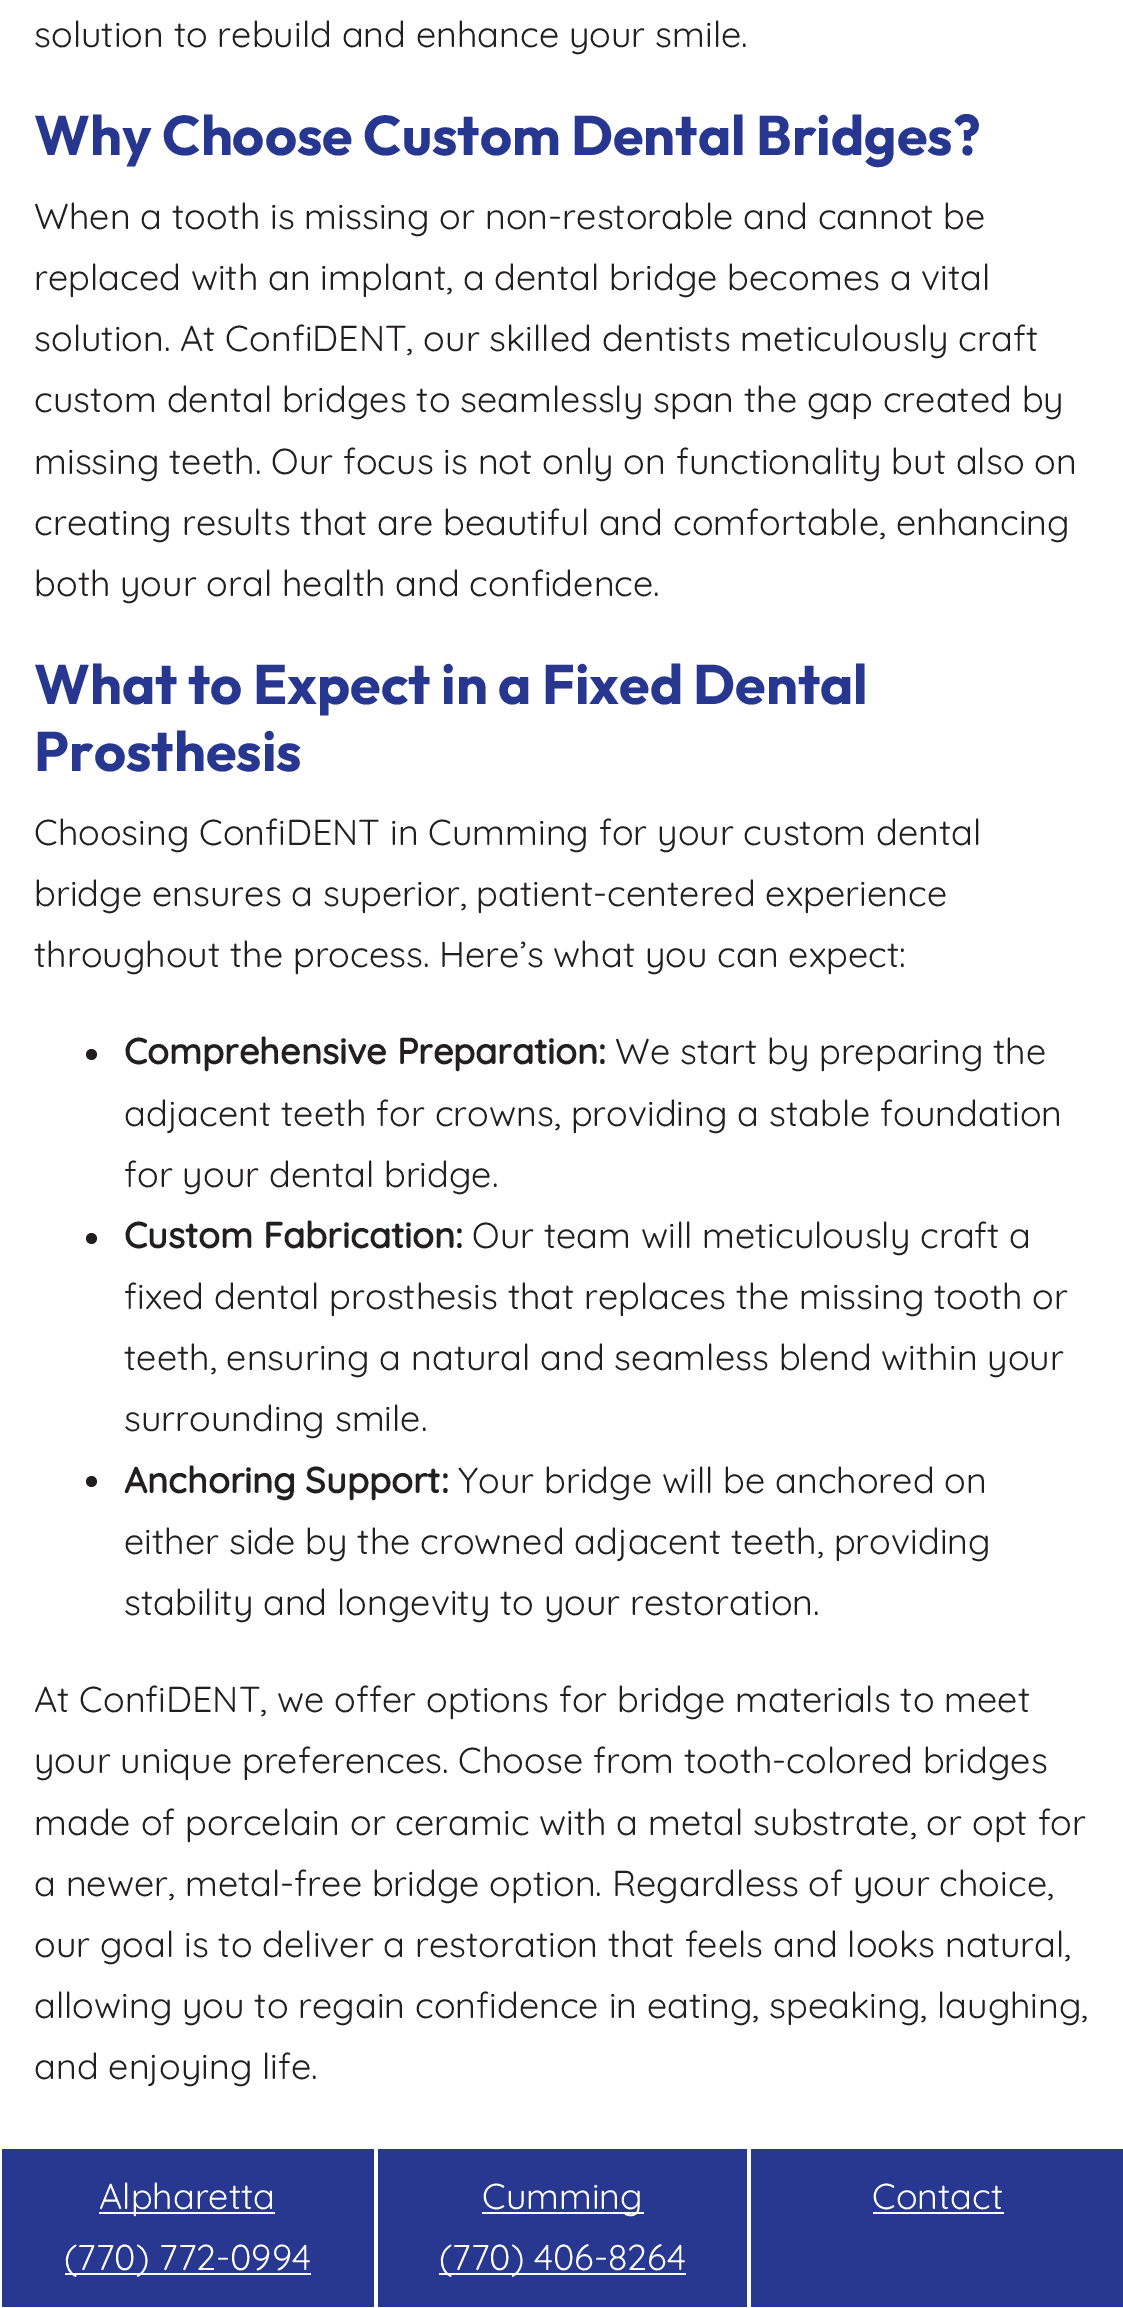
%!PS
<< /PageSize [1123 2308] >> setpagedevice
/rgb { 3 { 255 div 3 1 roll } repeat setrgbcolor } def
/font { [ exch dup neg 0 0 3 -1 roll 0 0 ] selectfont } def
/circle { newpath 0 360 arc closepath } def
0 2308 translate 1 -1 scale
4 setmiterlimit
255 255 255 rgb
0 0 1123 2308 rectfill
35 31 32 rgb
91.5 1054.5 5.5 circle fill
91.5 1238.5 5.5 circle fill
91.5 1481.5 5.5 circle fill
[
  [2 2149 372 158 40 56 145]
  [99 2212 176 2 255 255 255]
  [65 2273 246 2 255 255 255]
  [378 2149 369 158 40 56 145]
  [482 2212 162 2 255 255 255]
  [439 2273 247 2 255 255 255]
  [751 2149 372 158 40 56 145]
  [873 2212 131 2 255 255 255]
] { aload pop rgb rectfill } forall
/Quicksand-Regular 36 font
35 31 32 rgb
34 47 moveto (solution to rebuild and enhance your smile.) show
/Outfit-Bold 55.75 font
39 55 144 rgb
34 155 moveto (Why Choose Custom Dental Bridges?) show
/Quicksand-Regular 36 font
35 31 32 rgb
[
  [(When a tooth is missing or non-restorable and cannot be) 34 229]
  [(replaced with an implant, a dental bridge becomes a vital) 34 290]
  [(solution. At ConfiDENT, our skilled dentists meticulously craft) 34 351]
  [(custom dental bridges to seamlessly span the gap created by) 34 412]
  [(missing teeth. Our focus is not only on functionality but also on) 34 474]
  [(creating results that are beautiful and comfortable, enhancing) 34 535]
  [(both your oral health and confidence.) 34 596]
] { aload pop moveto show } forall
/Outfit-Bold 55.75 font
39 55 144 rgb
34 704 moveto (What to Expect in a Fixed Dental) show
34 771 moveto (Prosthesis) show
/Quicksand-Regular 36 font
35 31 32 rgb
[
  [(Choosing ConfiDENT in Cumming for your custom dental) 34 845]
  [(bridge ensures a superior, patient-centered experience) 34 906]
  [(throughout the process. Here’s what you can expect:) 34 967]
] { aload pop moveto show } forall
/Quicksand-Bold 36 font
124 1064 moveto (Comprehensive Preparation:) show
/Quicksand-Regular 36 font
[
  [(We start by preparing the) 615 1064]
  [(adjacent teeth for crowns, providing a stable foundation) 124 1126]
  [(for your dental bridge.) 124 1187]
] { aload pop moveto show } forall
/Quicksand-Bold 36 font
124 1248 moveto (Custom Fabrication:) show
/Quicksand-Regular 36 font
[
  [(Our team will meticulously craft a) 472 1248]
  [(fixed dental prosthesis that replaces the missing tooth or) 124 1309]
  [(teeth, ensuring a natural and seamless blend within your) 124 1370]
  [(surrounding smile.) 124 1431]
] { aload pop moveto show } forall
/Quicksand-Bold 36 font
124 1493 moveto (Anchoring Support:) show
/Quicksand-Regular 36 font
[
  [(Your bridge will be anchored on) 458 1493]
  [(either side by the crowned adjacent teeth, providing) 124 1554]
  [(stability and longevity to your restoration.) 124 1615]
  [(At ConfiDENT, we offer options for bridge materials to meet) 34 1712]
  [(your unique preferences. Choose from tooth-colored bridges) 34 1773]
  [(made of porcelain or ceramic with a metal substrate, or opt for) 34 1835]
  [(a newer, metal-free bridge option. Regardless of your choice,) 34 1896]
  [(our goal is to deliver a restoration that feels and looks natural,) 34 1957]
  [(allowing you to regain confidence in eating, speaking, laughing,) 34 2018]
  [(and enjoying life.) 34 2079]
] { aload pop moveto show } forall
255 255 255 rgb
[
  [(Alpharetta) 99 2209]
  [(\(770\) 772-0994) 64 2270]
  [(Cumming) 482 2209]
  [(\(770\) 406-8264) 439 2270]
  [(Contact) 872 2209]
] { aload pop moveto show } forall
showpage
